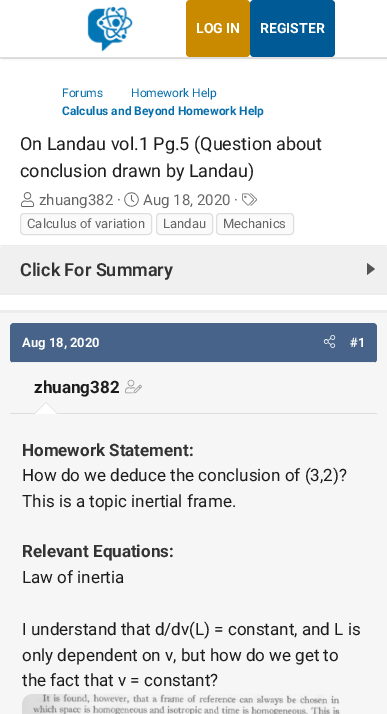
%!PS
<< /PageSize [387 714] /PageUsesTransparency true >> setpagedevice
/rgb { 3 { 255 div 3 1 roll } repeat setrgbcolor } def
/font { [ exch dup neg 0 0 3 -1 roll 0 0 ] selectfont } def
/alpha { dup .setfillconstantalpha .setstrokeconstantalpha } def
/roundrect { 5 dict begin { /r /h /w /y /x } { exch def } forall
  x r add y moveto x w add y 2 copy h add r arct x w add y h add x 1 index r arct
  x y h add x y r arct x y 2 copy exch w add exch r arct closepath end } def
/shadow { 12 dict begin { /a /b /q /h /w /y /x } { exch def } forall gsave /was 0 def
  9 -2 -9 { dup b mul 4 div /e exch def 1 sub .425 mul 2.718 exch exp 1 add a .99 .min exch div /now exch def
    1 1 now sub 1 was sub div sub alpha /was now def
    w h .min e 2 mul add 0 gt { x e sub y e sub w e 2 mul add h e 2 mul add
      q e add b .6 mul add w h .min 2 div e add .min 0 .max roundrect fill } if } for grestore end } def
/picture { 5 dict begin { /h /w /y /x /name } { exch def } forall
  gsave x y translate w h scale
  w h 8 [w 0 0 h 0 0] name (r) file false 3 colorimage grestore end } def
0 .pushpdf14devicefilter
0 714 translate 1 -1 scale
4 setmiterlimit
255 255 255 rgb
0 0 387 714 rectfill
228 226 226 rgb
0 58 387 1 rectfill
0 0 0 rgb
2 2 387 58 0 1 0.04 shadow
255 255 255 rgb
1 1 386 56 rectfill
222 222 222 rgb
0 57 387 1 rectfill
(img/1.rgb) 87 6 46 46 picture
201 138 0 rgb
186 0 64 57 4 roundrect fill
0 90 150 rgb
250 0 85 57 4 roundrect fill
(img/2.rgb) 20 192 15 15 picture
(img/3.rgb) 124 192 15 15 picture
(img/4.rgb) 242 193 15 13 picture
250 250 250 rgb
20.5 213.5 131 21 3.5 roundrect gsave fill grestore
222 222 222 rgb
stroke
250 250 250 rgb
156.5 213.5 56 21 3.5 roundrect gsave fill grestore
222 222 222 rgb
stroke
250 250 250 rgb
216.5 213.5 77 21 3.5 roundrect gsave fill grestore
222 222 222 rgb
stroke
[
  [0 246 387 3 250 250 250]
  [0 245 387 1 237 237 237]
  [0 294 387 1 237 237 237]
] { aload pop rgb rectfill } forall
240 240 240 rgb
3 246 moveto 384 246 lineto 385.5 246 387 247.5 387 249 curveto 387 294 lineto 0 294 lineto 0 249 lineto 0 247.5 1.5 246 3 246 curveto closepath fill
237 237 237 rgb
0 293 387 1 rectfill
84 84 84 rgb
367 275 moveto 367 263 lineto 375 269 lineto closepath fill
246 246 246 rgb
0 313 387 401 rectfill
237 237 237 rgb
0 310 387 3 rectfill
71 99 138 rgb
10 323 367 40 4 roundrect fill
237 237 237 rgb
12 362 363 1 rectfill
(img/5.rgb) 323 335 13 13 picture
222 222 222 rgb
10 413 367 1 rectfill
(img/6.rgb) 125 379 17 15 picture
58 414 moveto 34 414 lineto 46 402 lineto closepath fill
255 255 255 rgb
57 414 moveto 35 414 lineto 46 403 lineto closepath fill
(img/7.rgb) 22 694 318 20 picture
/Roboto-Bold 14 font
196 33 moveto (LOG IN) show
260 33 moveto (REGISTER) show
/Roboto-Regular 12 font
6 111 172 rgb
62 97 moveto (Forums) show
131 97 moveto (Homework Help) show
/Roboto-Bold 12 font
62 115 moveto (Calculus and Beyond Homework Help) show
/Roboto-Regular 18 font
28 28 28 rgb
20 150 moveto (On Landau vol.1 Pg.5 \(Question about) show
20 177 moveto (conclusion drawn by Landau\)) show
/Roboto-Regular 15 font
102 102 102 rgb
39 205 moveto (zhuang382 ·) show
143 205 moveto (Aug 18, 2020 ·) show
/Roboto-Regular 13 font
[
  [(Calculus of variation) 27 228]
  [(Landau) 163 228]
  [(Mechanics) 223 228]
] { aload pop moveto show } forall
/Roboto-SemiBold 18 font
51 51 51 rgb
20 276 moveto (Click For Summary) show
/Roboto-Bold 13 font
255 255 255 rgb
22 347 moveto (Aug 18, 2020) show
350 347 moveto (#1) show
/Roboto-Bold 17 font
28 28 28 rgb
34 393 moveto (zhuang382) show
51 51 51 rgb
22 456 moveto (Homework Statement:) show
/Roboto-Regular 17 font
28 28 28 rgb
22 481 moveto (How do we deduce the conclusion of \(3,2\)?) show
22 507 moveto (This is a topic inertial frame.) show
/Roboto-Bold 17 font
51 51 51 rgb
22 557 moveto (Relevant Equations:) show
/Roboto-Regular 17 font
28 28 28 rgb
[
  [(Law of inertia) 22 583]
  [(I understand that d/dv\(L\) = constant, and L is) 22 635]
  [(only dependent on v, but how do we get to) 22 661]
  [(the fact that v = constant?) 22 686]
] { aload pop moveto show } forall
.poppdf14devicefilter showpage
